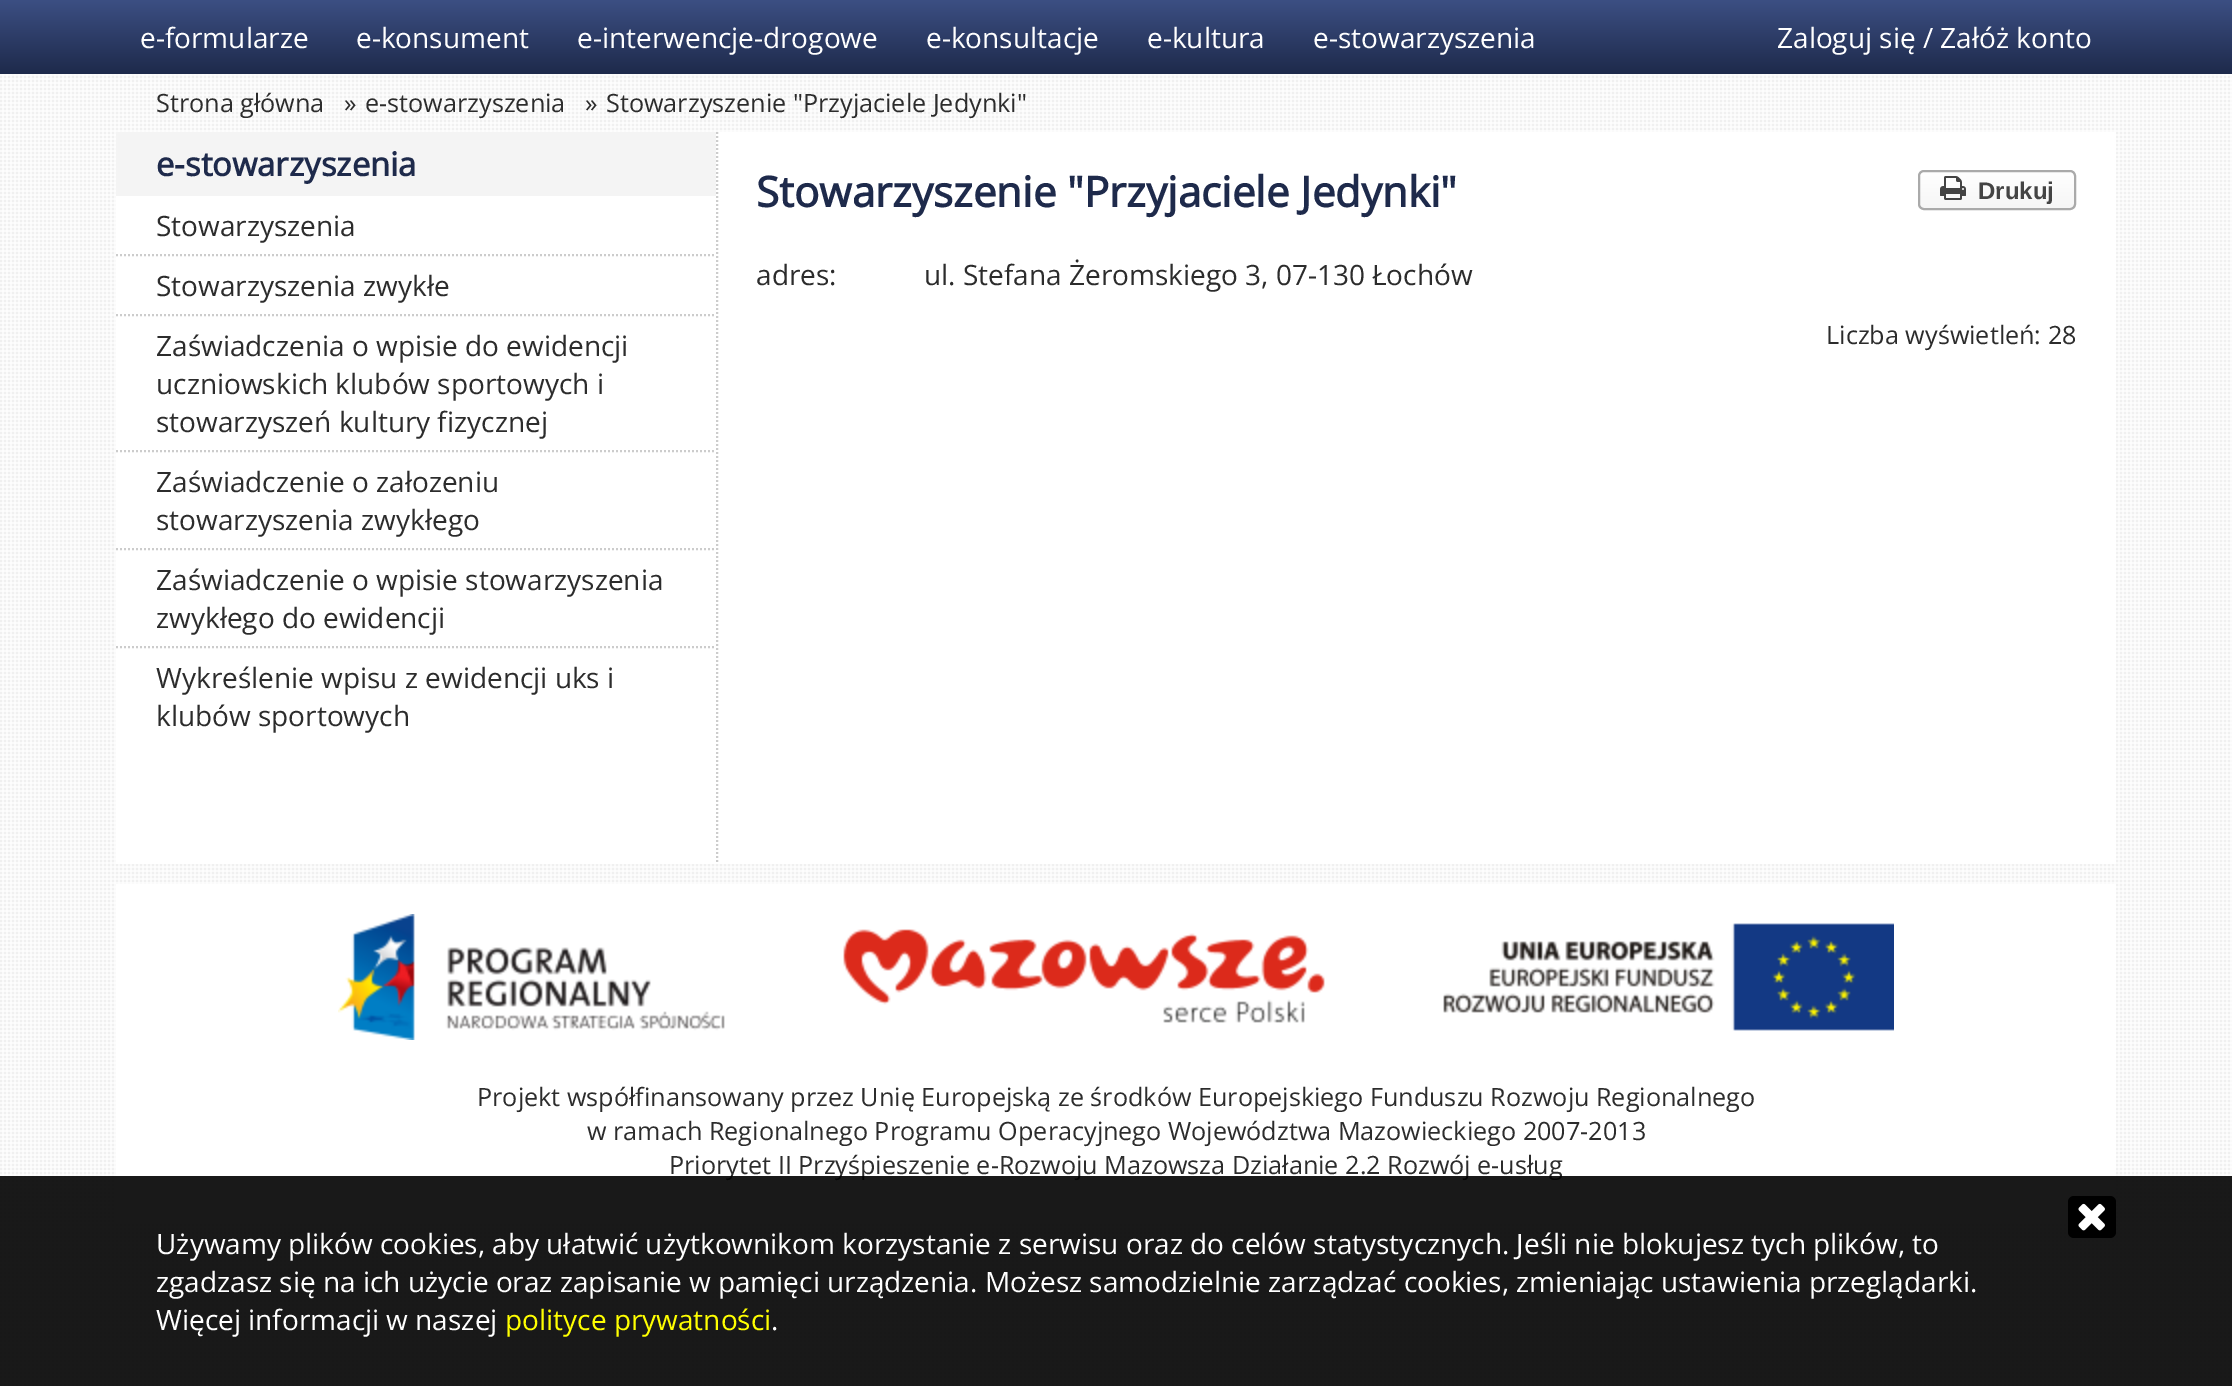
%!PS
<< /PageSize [2232 1386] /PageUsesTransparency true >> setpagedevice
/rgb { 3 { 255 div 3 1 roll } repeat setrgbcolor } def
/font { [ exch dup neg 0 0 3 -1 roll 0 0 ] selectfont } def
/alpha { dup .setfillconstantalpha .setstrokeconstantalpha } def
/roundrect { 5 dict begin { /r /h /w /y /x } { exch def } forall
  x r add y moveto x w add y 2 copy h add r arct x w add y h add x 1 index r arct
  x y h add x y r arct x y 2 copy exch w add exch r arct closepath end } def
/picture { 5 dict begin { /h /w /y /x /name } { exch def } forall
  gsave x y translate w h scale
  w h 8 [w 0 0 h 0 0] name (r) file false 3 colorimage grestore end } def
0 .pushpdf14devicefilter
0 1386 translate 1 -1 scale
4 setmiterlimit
255 255 255 rgb
0 0 2232 1386 rectfill
(img/1.rgb) 0 74 2232 1312 picture
gsave 0 0 moveto 2232 0 lineto 2232 74 lineto 0 74 lineto closepath clip newpath
<< /ShadingType 2 /ColorSpace /DeviceRGB /Coords [1116 0 1116 74] /Extend [true true] /Function << /FunctionType 2 /Domain [0 1] /C0 [0.235 0.31 0.514] /C1 [0.118 0.165 0.294] /N 1 >> >> shfill grestore
116 132 2000 732 rectfill
244 244 244 rgb
116 132 600 64 rectfill
204 204 204 rgb
2 setlinewidth
[2 2] 0 setdash
116 255 moveto 716 255 lineto stroke
116 315 moveto 716 315 lineto stroke
116 451 moveto 716 451 lineto stroke
116 549 moveto 716 549 lineto stroke
116 647 moveto 716 647 lineto stroke
717 132 moveto 717 864 lineto stroke
gsave
1918 170 158 40 6 roundrect clip newpath
gsave 1918 172 moveto 2076 172 lineto 2076 208 lineto 1918 208 lineto closepath clip newpath
<< /ShadingType 2 /ColorSpace /DeviceRGB /Coords [1997 172 1997 208] /Extend [true true] /Function << /FunctionType 2 /Domain [0 1] /C0 [1 1 1] /C1 [0.965 0.965 0.965] /N 1 >> >> shfill grestore
grestore
170 170 170 rgb
[] 0 setdash
1919 171 156 38 5 roundrect stroke
(img/2.rgb) 1940 176 26 24 picture
255 255 255 rgb
116 884 2000 338 rectfill
(img/3.rgb) 338 914 1556 126 picture
/OpenSans-Regular 28 font
[
  [(e-formularze) 140 48]
  [(e-konsument) 356 48]
  [(e-interwencje-drogowe) 577 48]
  [(e-konsultacje) 926 48]
  [(e-kultura) 1147 48]
  [(e-stowarzyszenia) 1313 48]
  [(Zaloguj się / Załóż konto) 1777 48]
] { aload pop moveto show } forall
/OpenSans-Regular 25.2 font
44 44 44 rgb
[
  [(Strona główna) 156 112]
  [(») 344 112]
  [(e-stowarzyszenia) 365 112]
  [(») 585 112]
  [(Stowarzyszenie "Przyjaciele Jedynki") 606 112]
] { aload pop moveto show } forall
/OpenSans-Bold 32.75 font
30 42 75 rgb
156 176 moveto (e-stowarzyszenia) show
/OpenSans-Regular 28 font
44 44 44 rgb
[
  [(Stowarzyszenia) 156 236]
  [(Stowarzyszenia zwykłe) 156 296]
  [(Zaświadczenia o wpisie do ewidencji) 156 356]
  [(uczniowskich klubów sportowych i) 156 394]
  [(stowarzyszeń kultury fizycznej) 156 432]
  [(Zaświadczenie o załozeniu) 156 492]
  [(stowarzyszenia zwykłego) 156 530]
  [(Zaświadczenie o wpisie stowarzyszenia) 156 590]
  [(zwykłego do ewidencji) 156 628]
  [(Wykreślenie wpisu z ewidencji uks i) 156 688]
  [(klubów sportowych) 156 726]
] { aload pop moveto show } forall
/OpenSans-Bold 42 font
30 42 75 rgb
756 207 moveto (Stowarzyszenie "Przyjaciele Jedynki") show
/LiberationSans-Bold 24 font
68 68 68 rgb
1978 199 moveto (Drukuj) show
/OpenSans-Regular 28 font
44 44 44 rgb
756 285 moveto (adres:) show
924 285 moveto (ul. Stefana Żeromskiego 3, 07-130 Łochów) show
/OpenSans-Regular 25.2 font
[
  [(Liczba wyświetleń: 28) 1826 344]
  [(Projekt współfinansowany przez Unię Europejską ze środków Europejskiego Funduszu Rozwoju Regionalnego) 477 1106]
  [(w ramach Regionalnego Programu Operacyjnego Województwa Mazowieckiego 2007-2013) 587 1140]
  [(Priorytet II Przyśpieszenie e-Rozwoju Mazowsza Działanie 2.2 Rozwój e-usług) 669 1174]
] { aload pop moveto show } forall
0.9 alpha
0 0 0 rgb
0 1176 2232 210 rectfill
1 alpha
2068 1196 48 42 6 roundrect fill
(img/4.rgb) 2078 1203 27 28 picture
/OpenSans-Regular 28 font
255 255 255 rgb
[
  [(Używamy plików cookies, aby ułatwić użytkownikom korzystanie z serwisu oraz do celów statystycznych. Jeśli nie blokujesz tych plików, to) 156 1254]
  [(zgadzasz się na ich użycie oraz zapisanie w pamięci urządzenia. Możesz samodzielnie zarządzać cookies, zmieniając ustawienia przeglądarki.) 156 1292]
  [(Więcej informacji w naszej) 156 1330]
] { aload pop moveto show } forall
255 255 0 rgb
505 1330 moveto (polityce prywatności) show
255 255 255 rgb
771 1330 moveto (.) show
.poppdf14devicefilter showpage
